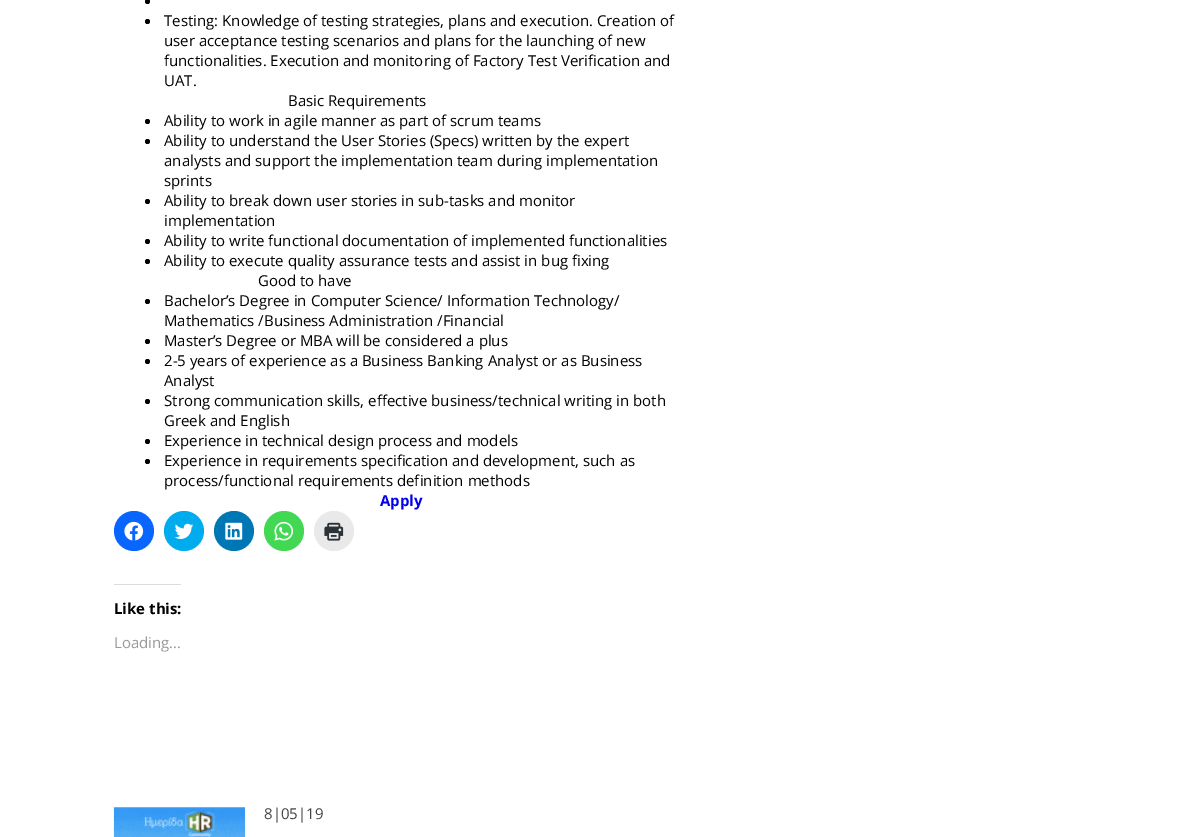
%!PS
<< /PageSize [1204 837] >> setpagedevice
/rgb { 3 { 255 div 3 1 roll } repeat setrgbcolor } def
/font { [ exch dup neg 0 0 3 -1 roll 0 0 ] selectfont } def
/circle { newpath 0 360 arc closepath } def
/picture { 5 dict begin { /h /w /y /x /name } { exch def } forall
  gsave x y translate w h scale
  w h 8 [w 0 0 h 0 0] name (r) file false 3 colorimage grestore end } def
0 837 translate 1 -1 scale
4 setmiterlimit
255 255 255 rgb
0 0 1204 837 rectfill
0 0 0 rgb
147.5 1.5 2.5 circle fill
147.5 21.5 2.5 circle fill
147.5 121.5 2.5 circle fill
147.5 141.5 2.5 circle fill
147.5 201.5 2.5 circle fill
147.5 241.5 2.5 circle fill
147.5 261.5 2.5 circle fill
147.5 301.5 2.5 circle fill
147.5 341.5 2.5 circle fill
147.5 361.5 2.5 circle fill
147.5 401.5 2.5 circle fill
147.5 441.5 2.5 circle fill
147.5 461.5 2.5 circle fill
8 102 255 rgb
134 531 20 circle fill
(img/1.rgb) 124 521 20 20 picture
0 172 238 rgb
184 531 20 circle fill
(img/2.rgb) 174 523 20 16 picture
0 119 181 rgb
234 531 20 circle fill
(img/3.rgb) 225 522 18 18 picture
67 216 84 rgb
284 531 20 circle fill
(img/4.rgb) 274 521 20 20 picture
233 233 233 rgb
334 531 20 circle fill
(img/5.rgb) 324 522 20 19 picture
220 220 222 rgb
114 584 67 1 rectfill
(img/6.rgb) 113 807 132 30 picture
/OpenSans-Regular 15 font
0 0 0 rgb
[
  [(Testing: Knowledge of testing strategies, plans and execution. Creation of) 164 26]
  [(user acceptance testing scenarios and plans for the launching of new) 164 46]
  [(functionalities. Execution and monitoring of Factory Test Verification and) 164 66]
  [(UAT.) 164 86]
  [(Basic Requirements) 288 106]
  [(Ability to work in agile manner as part of scrum teams) 164 126]
  [(Ability to understand the User Stories \(Specs\) written by the expert) 164 146]
  [(analysts and support the implementation team during implementation) 164 166]
  [(sprints) 164 186]
  [(Ability to break down user stories in sub-tasks and monitor) 164 206]
  [(implementation) 164 226]
  [(Ability to write functional documentation of implemented functionalities) 164 246]
  [(Ability to execute quality assurance tests and assist in bug fixing) 164 266]
  [(Good to have) 258 286]
  [(Bachelor’s Degree in Computer Science/ Information Technology/) 164 306]
  [(Mathematics /Business Administration /Financial) 164 326]
  [(Master’s Degree or MBA will be considered a plus) 164 346]
  [(2-5 years of experience as a Business Banking Analyst or as Business) 164 366]
  [(Analyst) 164 386]
  [(Strong communication skills, effective business/technical writing in both) 164 406]
  [(Greek and English) 164 426]
  [(Experience in technical design process and models) 164 446]
  [(Experience in requirements specification and development, such as) 164 466]
  [(process/functional requirements definition methods) 164 486]
] { aload pop moveto show } forall
/OpenSans-Bold 15 font
0 0 238 rgb
380 506 moveto (Apply) show
0 0 0 rgb
114 614 moveto (Like this:) show
/OpenSans-Regular 15 font
153 153 153 rgb
114 648 moveto (Loading...) show
68 68 68 rgb
264 819 moveto (8|05|19) show
showpage
